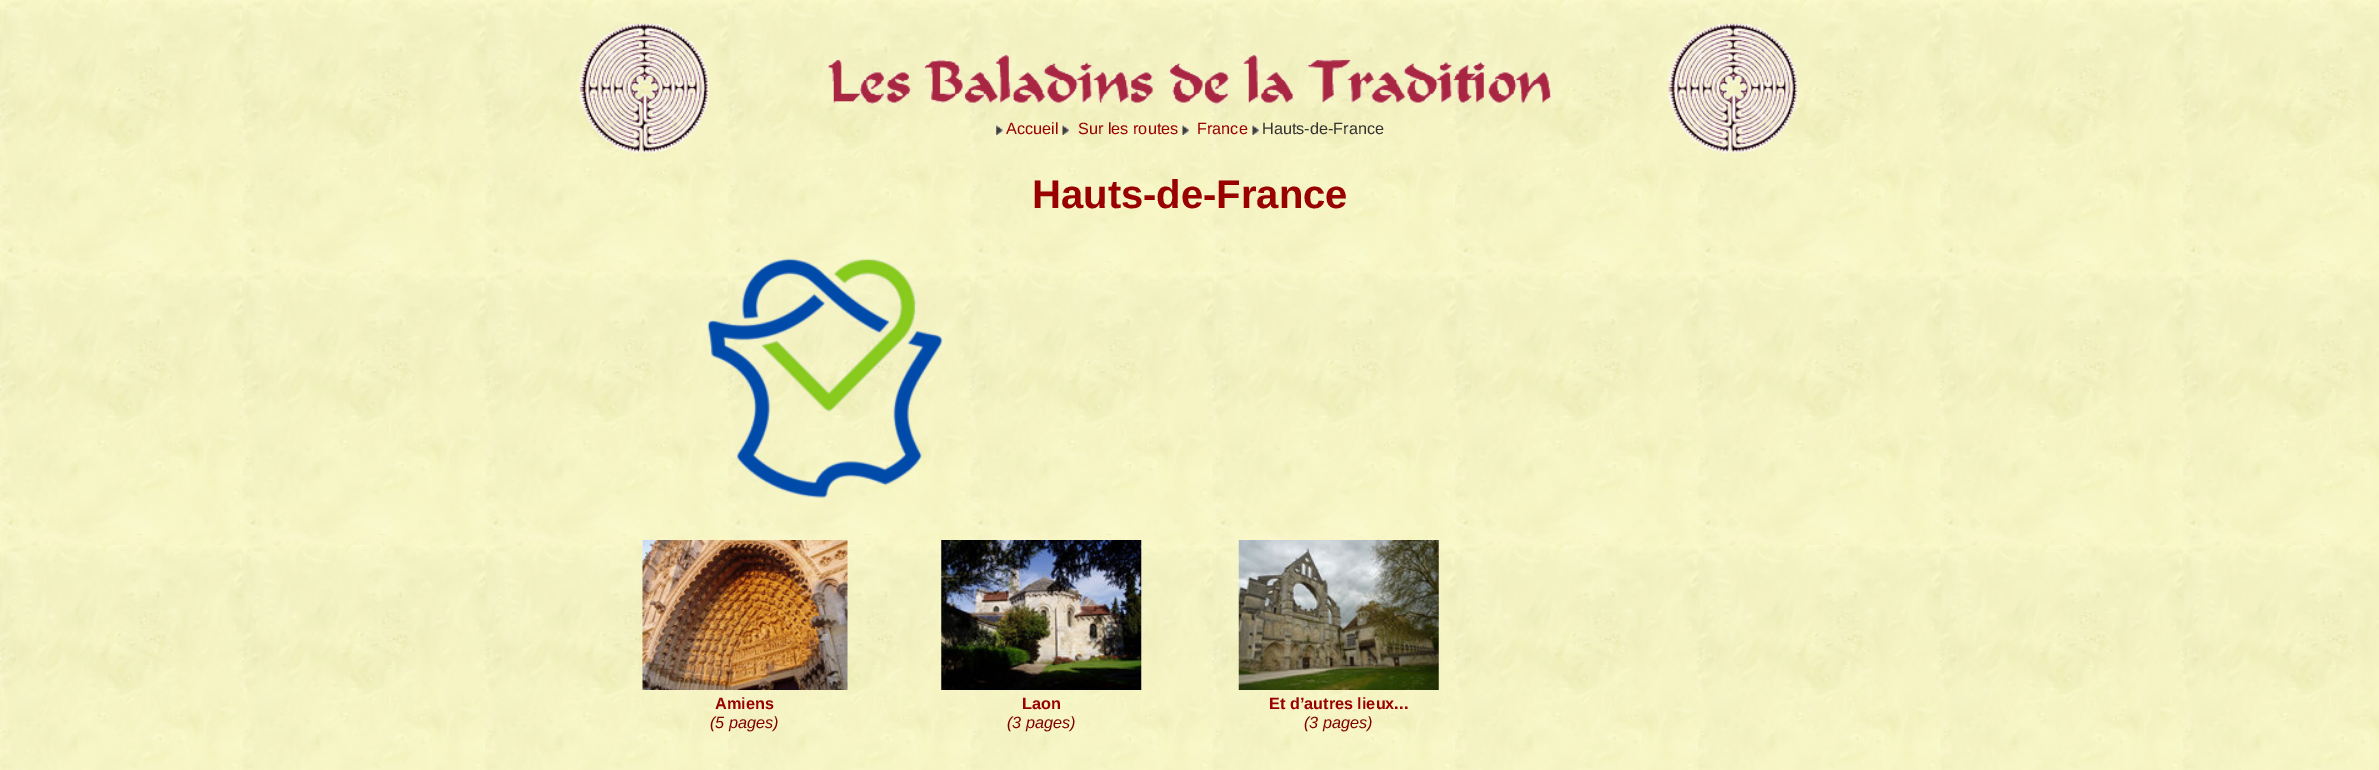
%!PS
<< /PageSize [2379 770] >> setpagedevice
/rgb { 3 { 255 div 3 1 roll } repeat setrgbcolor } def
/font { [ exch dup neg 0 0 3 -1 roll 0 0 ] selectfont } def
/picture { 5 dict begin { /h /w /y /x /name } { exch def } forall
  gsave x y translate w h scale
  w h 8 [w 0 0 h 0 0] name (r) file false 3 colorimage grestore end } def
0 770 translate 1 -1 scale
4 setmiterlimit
255 255 255 rgb
0 0 2379 770 rectfill
(img/1.rgb) 0 0 2379 770 picture
(img/2.rgb) 580 23 129 130 picture
(img/3.rgb) 827 54 725 50 picture
(img/4.rgb) 996 125 7 10 picture
(img/5.rgb) 1062 125 7 10 picture
(img/6.rgb) 1182 125 7 10 picture
(img/7.rgb) 1252 125 7 10 picture
(img/8.rgb) 1668 23 130 130 picture
(img/9.rgb) 707 258 236 240 picture
(img/10.rgb) 642 540 206 150 picture
(img/11.rgb) 941 540 201 150 picture
(img/12.rgb) 1238 540 201 150 picture
/LiberationSans-Regular 16.25 font
153 0 0 rgb
[
  [(Accueil) 1006 134]
  [(Sur les routes) 1078 134]
  [(France) 1197 134]
] { aload pop moveto show } forall
51 51 51 rgb
1262 134 moveto (Hauts-de-France) show
/LiberationSans-Bold 40 font
153 0 0 rgb
1032 208 moveto (Hauts-de-France) show
/LiberationSans-Bold 16.25 font
715 709 moveto (Amiens) show
/LiberationSans-Italic 16.25 font
128 0 0 rgb
710 728 moveto (\(5 pages\)) show
/LiberationSans-Bold 16.25 font
153 0 0 rgb
1022 709 moveto (Laon) show
/LiberationSans-Italic 16.25 font
128 0 0 rgb
1007 728 moveto (\(3 pages\)) show
/LiberationSans-Bold 16.25 font
153 0 0 rgb
1269 709 moveto (Et d’autres lieux...) show
/LiberationSans-Italic 16.25 font
128 0 0 rgb
1304 728 moveto (\(3 pages\)) show
showpage
